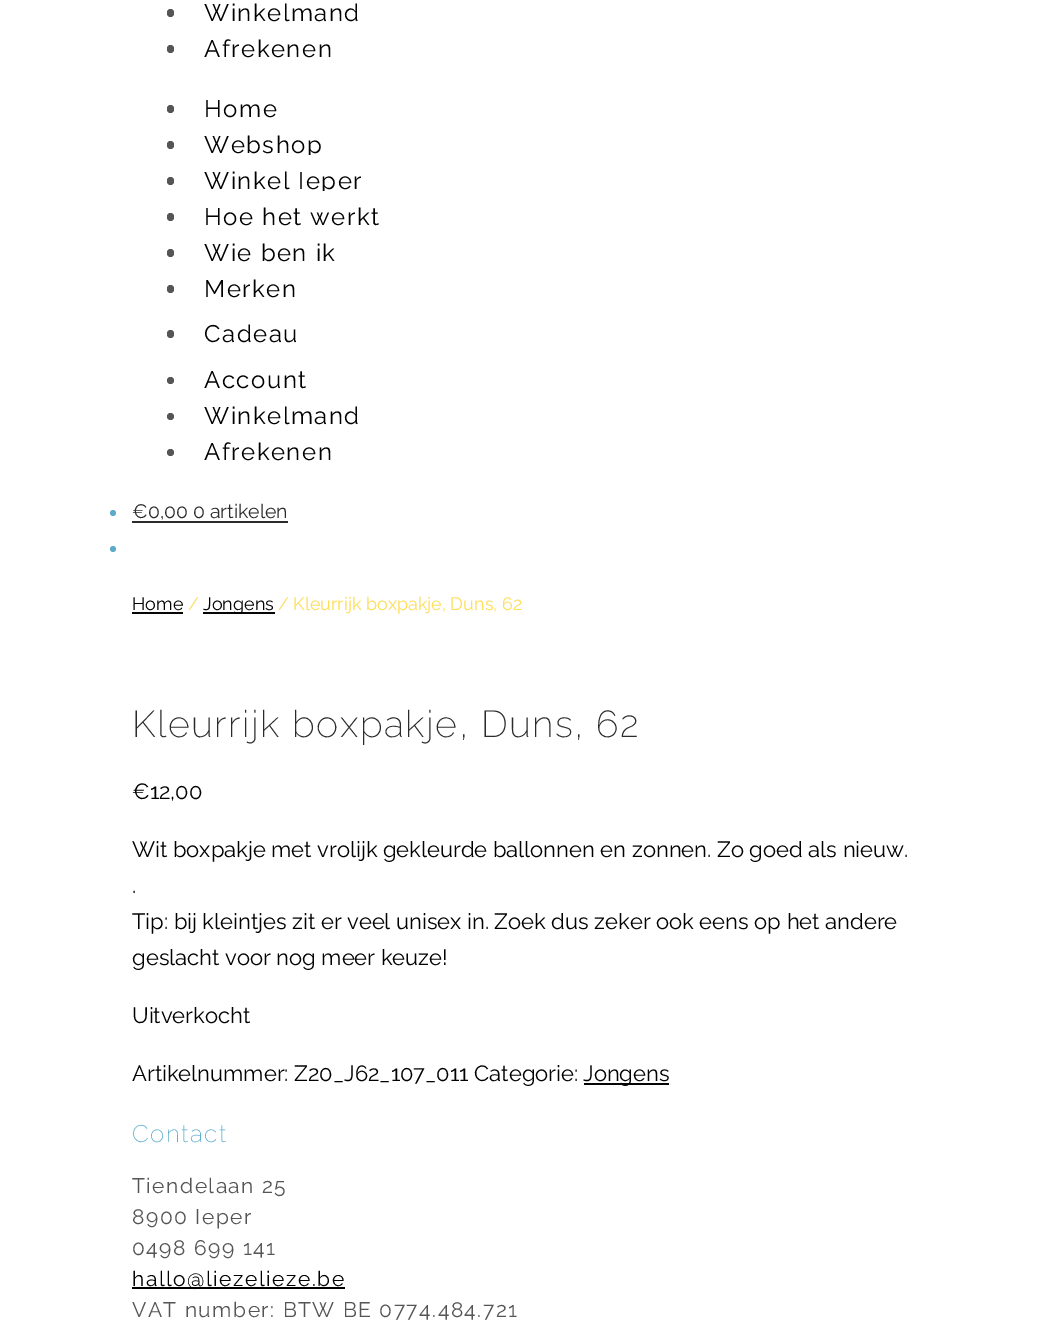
%!PS
<< /PageSize [1054 1328] >> setpagedevice
/rgb { 3 { 255 div 3 1 roll } repeat setrgbcolor } def
/font { [ exch dup neg 0 0 3 -1 roll 0 0 ] selectfont } def
/circle { newpath 0 360 arc closepath } def
/roundrect { 5 dict begin { /r /h /w /y /x } { exch def } forall
  x r add y moveto x w add y 2 copy h add r arct x w add y h add x 1 index r arct
  x y h add x y r arct x y 2 copy exch w add exch r arct closepath end } def
0 1328 translate 1 -1 scale
4 setmiterlimit
255 255 255 rgb
0 0 1054 1328 rectfill
85 85 85 rgb
167 9 7 8 3.5 roundrect fill
167 45 7 8 3.5 roundrect fill
167 105 7 8 3.5 roundrect fill
167 141 7 8 3.5 roundrect fill
167 177 7 8 3.5 roundrect fill
167 213 7 8 3.5 roundrect fill
167 249 7 8 3.5 roundrect fill
167 285 7 8 3.5 roundrect fill
167 330 7 8 3.5 roundrect fill
170.5 380.5 3.5 circle fill
170.5 416.5 3.5 circle fill
170.5 452.5 3.5 circle fill
93 171 202 rgb
113 513 3 circle fill
43 43 43 rgb
132 521 156 2 rectfill
93 171 202 rgb
113 549 3 circle fill
[
  [132 612 51 2 5 5 5]
  [203 612 72 2 5 5 5]
  [584 1083 85 2 5 5 5]
  [132 1287 213 2 0 0 0]
] { aload pop rgb rectfill } forall
/Raleway-Regular 24 font
204 21 moveto 1.5 0 (Winkelmand) ashow
204 57 moveto 1.5 0 (Afrekenen) ashow
204 117 moveto 1.5 0 (Home) ashow
204 153 moveto 1.5 0 (Webshop) ashow
204 189 moveto 1.5 0 (Winkel Ieper) ashow
255 255 255 rgb
308 155 3 4 rectfill
0 0 0 rgb
204 225 moveto 1.5 0 (Hoe het werkt) ashow
255 255 255 rgb
322 191 3 4 rectfill
0 0 0 rgb
204 261 moveto 1.5 0 (Wie ben ik) ashow
204 297 moveto 1.5 0 (Merken) ashow
204 342 moveto 1.5 0 (Cadeau) ashow
204 388 moveto 1.5 0 (Account) ashow
204 424 moveto 1.5 0 (Winkelmand) ashow
204 460 moveto 1.5 0 (Afrekenen) ashow
/Raleway-Regular 19.5 font
43 43 43 rgb
132 518 moveto (€0,00 0 artikelen) show
/Raleway-Regular 18 font
0 0 0 rgb
132 610 moveto (Home) show
254 221 88 rgb
188 610 moveto (/) show
0 0 0 rgb
203 610 moveto (Jongens) show
254 221 88 rgb
278 610 moveto (/ Kleurrijk boxpakje, Duns, 62) show
/Raleway-ExtraLight 37.5 font
43 43 43 rgb
132 737 moveto 1.5 0 (Kleurrijk boxpakje, Duns, 62) ashow
/Raleway-Regular 22 font
0 0 0 rgb
[
  [(€12,00) 132 799]
  [(Wit boxpakje met vrolijk gekleurde ballonnen en zonnen. Zo goed als nieuw.) 132 857]
  [(.) 132 893]
  [(Tip: bij kleintjes zit er veel unisex in. Zoek dus zeker ook eens op het andere) 132 929]
  [(geslacht voor nog meer keuze!) 132 965]
  [(Uitverkocht) 132 1023]
  [(Artikelnummer: Z20_J62_107_011 Categorie:) 132 1081]
  [(Jongens) 583 1081]
] { aload pop moveto show } forall
/Raleway-ExtraLight 24 font
93 174 204 rgb
132 1142 moveto 1.5 0 (Contact) ashow
/Raleway-Regular 21 font
85 85 85 rgb
132 1193 moveto 1.5 0 (Tiendelaan 25) ashow
132 1224 moveto 1.5 0 (8900 Ieper) ashow
132 1255 moveto 1.5 0 (0498 699 141) ashow
0 0 0 rgb
132 1286 moveto 1.5 0 (hallo@liezelieze.be) ashow
85 85 85 rgb
132 1317 moveto 1.5 0 (VAT number: BTW BE 0774.484.721) ashow
showpage
